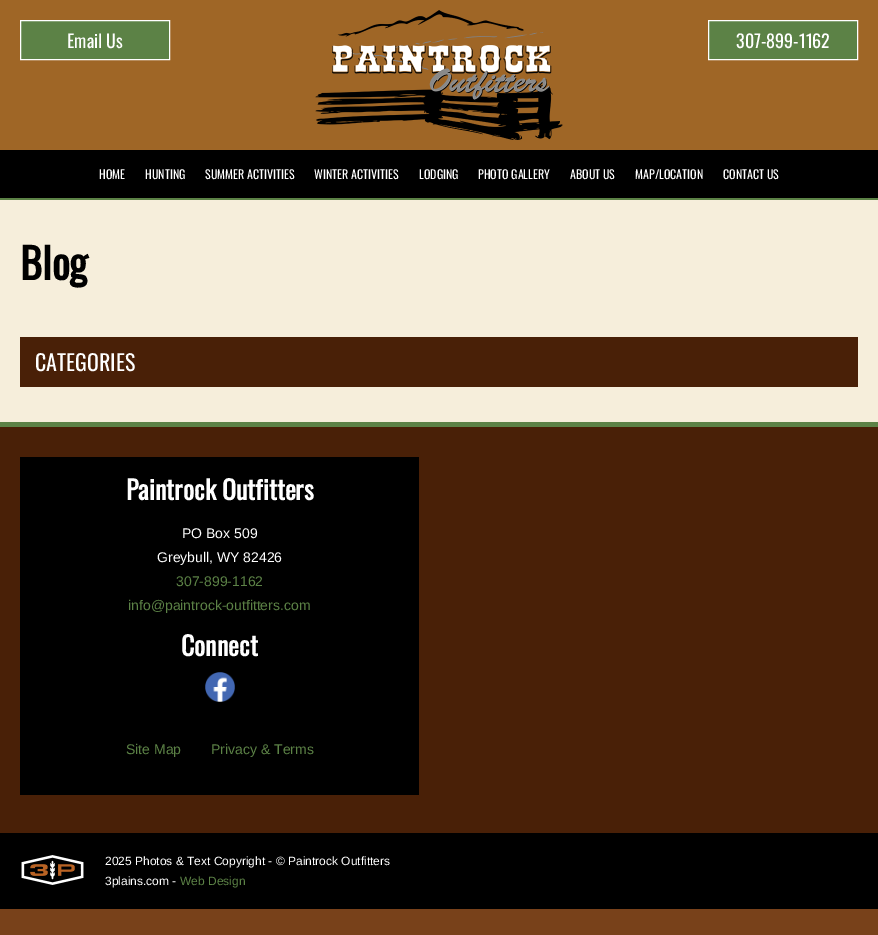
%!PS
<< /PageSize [878 935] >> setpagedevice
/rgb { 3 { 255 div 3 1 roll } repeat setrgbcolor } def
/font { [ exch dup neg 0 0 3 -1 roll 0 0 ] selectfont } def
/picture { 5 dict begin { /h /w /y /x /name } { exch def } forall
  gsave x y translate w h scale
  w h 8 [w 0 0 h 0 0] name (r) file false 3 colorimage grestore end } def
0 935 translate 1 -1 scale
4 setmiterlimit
120 65 26 rgb
0 0 878 935 rectfill
159 102 38 rgb
0 0 878 150 rectfill
92 130 70 rgb
20.5 20.5 moveto 169.5 20.5 lineto 169.5 59.5 lineto 20.5 59.5 lineto closepath gsave fill grestore
255 255 255 rgb
stroke
(img/1.rgb) 315 10 248 130 picture
92 130 70 rgb
708.5 20.5 moveto 857.5 20.5 lineto 857.5 59.5 lineto 708.5 59.5 lineto closepath gsave fill grestore
255 255 255 rgb
stroke
[
  [0 150 878 48 0 0 0]
  [0 198 878 2 92 130 70]
  [0 200 878 222 246 238 219]
  [20 337 838 50 73 32 7]
  [0 427 878 406 73 32 7]
  [0 422 878 5 92 130 70]
  [20 457 399 338 0 0 0]
] { aload pop rgb rectfill } forall
(img/2.rgb) 205 672 30 30 picture
0 833 878 76 rectfill
(img/3.rgb) 21 855 63 30 picture
/Oswald-Regular 18 font
255 255 255 rgb
67 48 moveto (Email Us) show
736 48 moveto (307-899-1162) show
/Oswald-Regular 12 font
[
  [(HOME) 99 179]
  [(HUNTING) 145 179]
  [(SUMMER ACTIVITIES) 205 179]
  [(WINTER ACTIVITIES) 314 179]
  [(LODGING) 419 179]
  [(PHOTO GALLERY) 478 179]
  [(ABOUT US) 570 179]
  [(MAP/LOCATION) 635 179]
  [(CONTACT US) 723 179]
] { aload pop moveto show } forall
/Oswald-Bold 42 font
0 0 0 rgb
20 280 moveto (Blog) show
/Oswald-Regular 22 font
255 255 255 rgb
35 371 moveto (CATEGORIES) show
/Oswald-Bold 26 font
126 500 moveto (Paintrock Outfitters) show
/LiberationSans-Regular 14 font
182 538 moveto (PO Box 509) show
157 562 moveto (Greybull, WY 82426) show
92 130 70 rgb
176 586 moveto (307-899-1162) show
128 610 moveto (info@paintrock-outfitters.com) show
/Oswald-Bold 26 font
255 255 255 rgb
181 656 moveto (Connect) show
/LiberationSans-Regular 14 font
92 130 70 rgb
126 754 moveto (Site Map) show
211 754 moveto (Privacy & Terms) show
/LiberationSans-Regular 12 font
255 255 255 rgb
105 865 moveto (2025 Photos & Text Copyright - © Paintrock Outfitters) show
105 885 moveto (3plains.com -) show
92 130 70 rgb
180 885 moveto (Web Design) show
showpage
